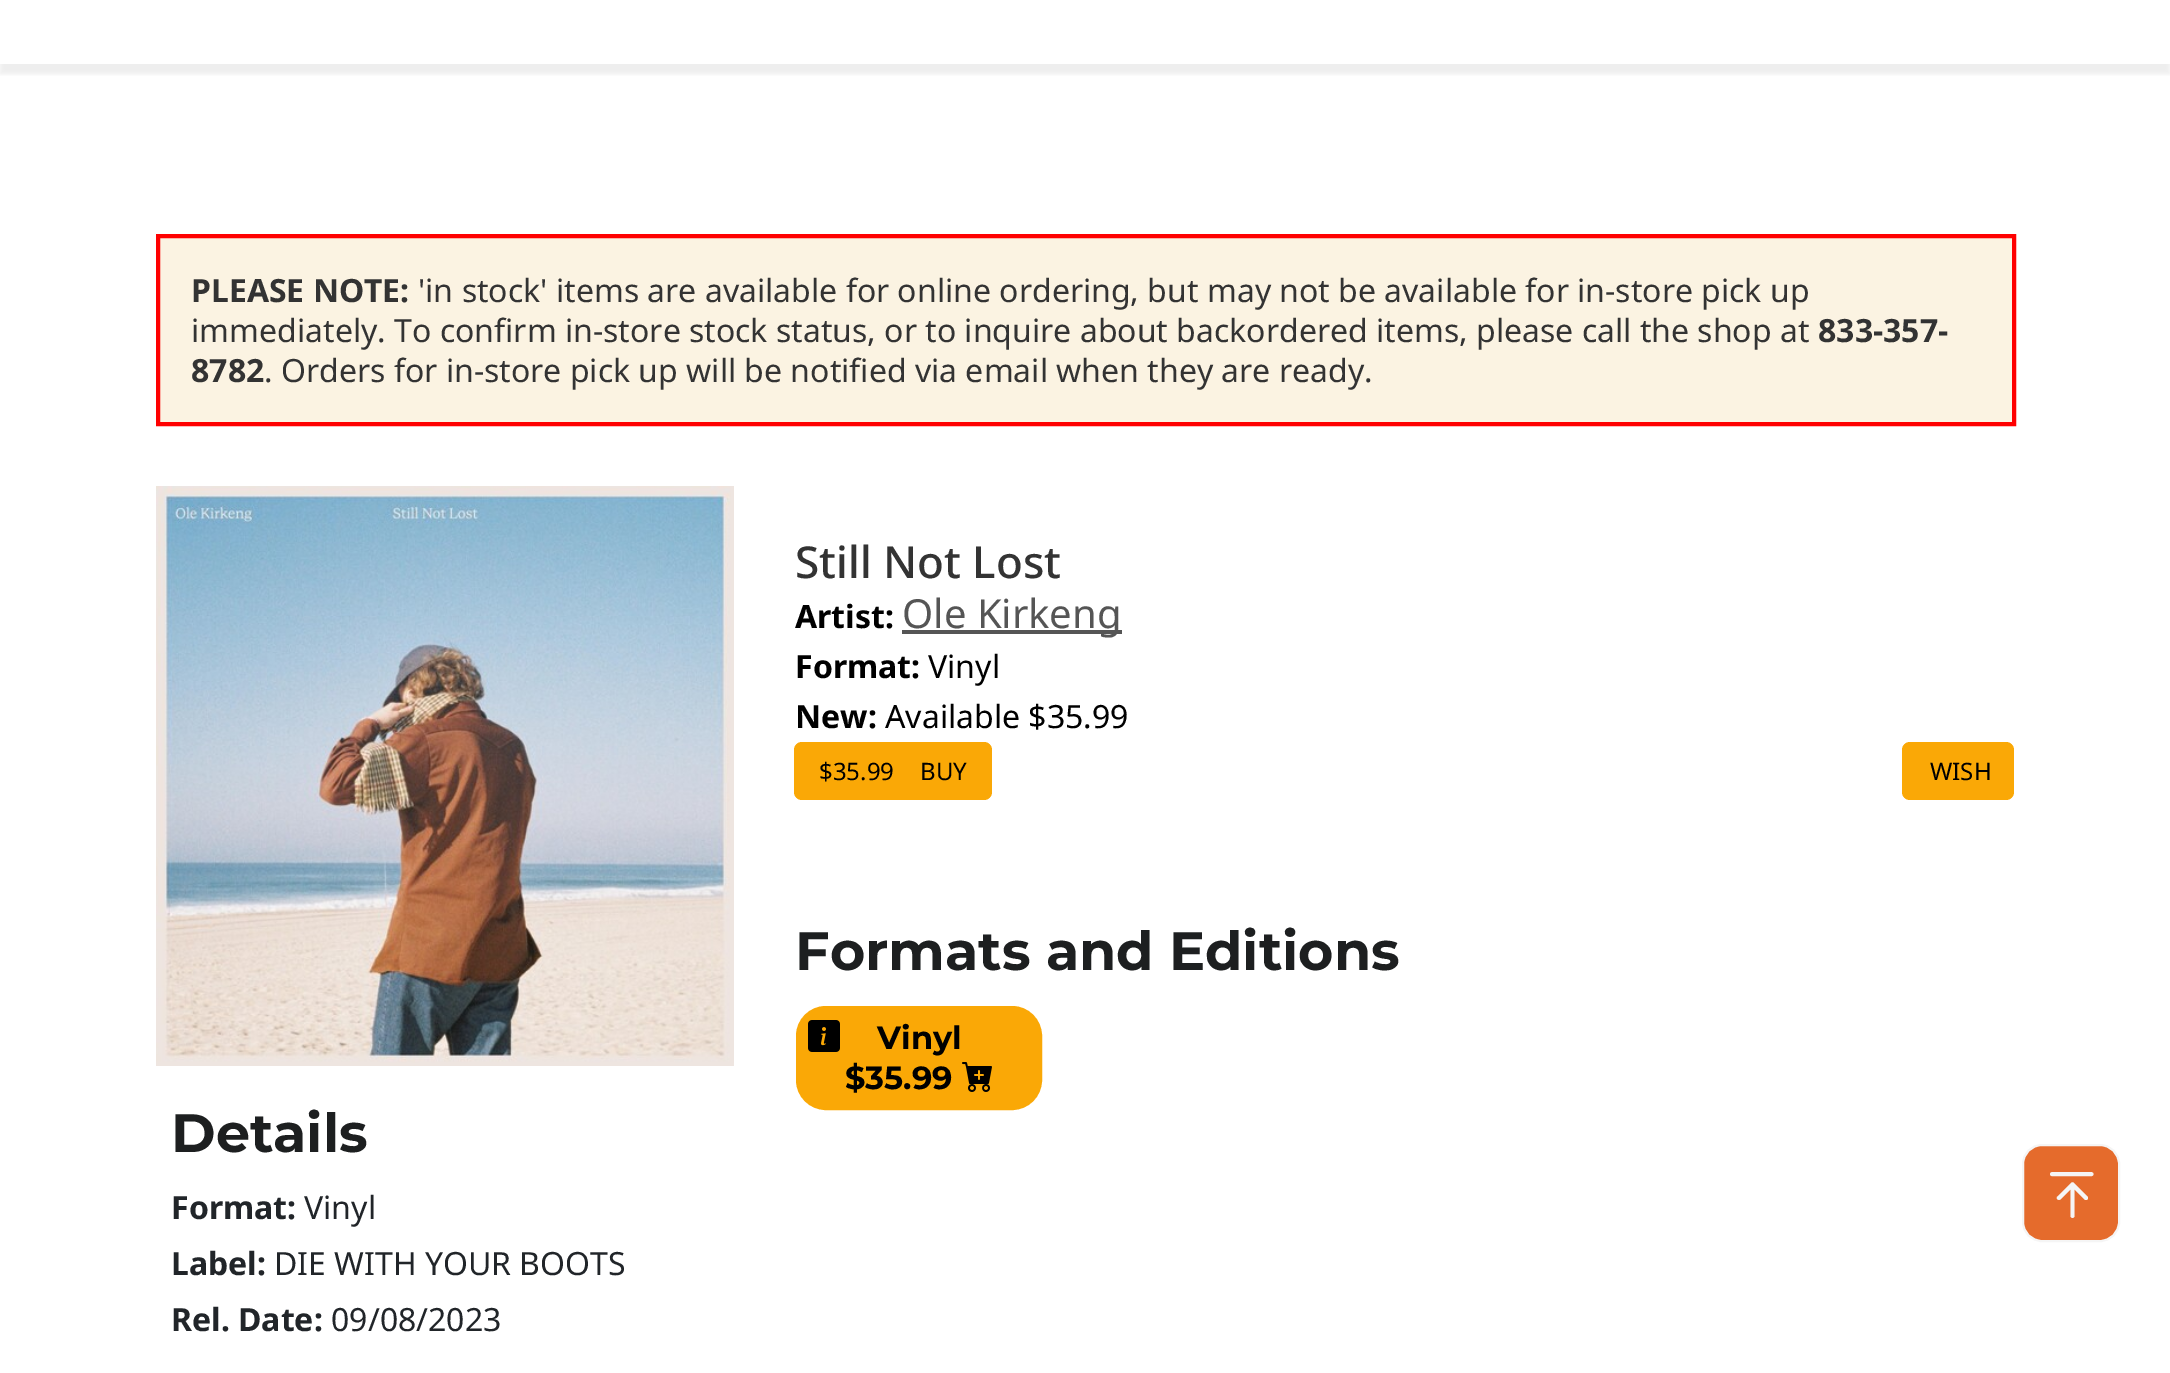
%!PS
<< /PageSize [2170 1373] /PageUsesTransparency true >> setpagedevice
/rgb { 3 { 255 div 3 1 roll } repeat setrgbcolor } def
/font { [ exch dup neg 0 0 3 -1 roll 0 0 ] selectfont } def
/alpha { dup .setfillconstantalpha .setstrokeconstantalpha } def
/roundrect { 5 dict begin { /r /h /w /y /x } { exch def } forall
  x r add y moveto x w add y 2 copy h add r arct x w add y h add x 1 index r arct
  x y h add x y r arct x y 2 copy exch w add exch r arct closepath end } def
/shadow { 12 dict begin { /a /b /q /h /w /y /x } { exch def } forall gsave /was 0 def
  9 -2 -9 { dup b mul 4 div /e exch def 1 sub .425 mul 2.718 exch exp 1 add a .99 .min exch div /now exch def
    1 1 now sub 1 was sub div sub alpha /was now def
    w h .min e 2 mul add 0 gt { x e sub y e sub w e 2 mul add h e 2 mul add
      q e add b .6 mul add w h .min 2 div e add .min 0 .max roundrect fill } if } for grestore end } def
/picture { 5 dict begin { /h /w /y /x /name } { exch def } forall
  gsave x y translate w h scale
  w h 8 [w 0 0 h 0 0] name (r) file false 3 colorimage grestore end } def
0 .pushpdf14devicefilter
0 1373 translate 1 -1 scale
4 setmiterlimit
255 255 255 rgb
0 0 2170 1373 rectfill
gsave
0 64 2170 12 rectclip
91 91 91 rgb
0 -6 2170 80 0 2 0.1 shadow
grestore
251 243 226 rgb
158 236 moveto 2014 236 lineto 2014 424 lineto 158 424 lineto closepath gsave fill grestore
255 0 0 rgb
4 setlinewidth
stroke
85 85 85 rgb
902 630 220 4 rectfill
250 168 6 rgb
794 742 198 58 8 roundrect fill
1902 742 112 58 8 roundrect fill
797 1007 244 102 29 roundrect gsave fill grestore
2 setlinewidth
stroke
(img/1.rgb) 808 1020 32 32 picture
(img/2.rgb) 962 1062 30 30 picture
(img/3.rgb) 156 486 578 580 picture
229 107 44 rgb
2023 1145 96 96 19 roundrect gsave fill grestore
245 245 245 rgb
stroke
3.9 setlinewidth
1 setlinecap
2052 1174 moveto 2091.5 1174 lineto stroke
2070.5 1216 moveto 2070.5 1218.5 2074.5 1218.5 2074.5 1216 curveto closepath 2074 1183 moveto 2073 1182 2072 1182 2071 1183 curveto 2057.5 1196.5 lineto 2056.5 1197 2056.5 1198.5 2057.5 1199.5 curveto 2058.5 1200 2059.5 1200 2060.5 1199.5 curveto 2072.5 1187.5 lineto 2084.5 1199.5 lineto 2085 1200 2086.5 1200 2087.5 1199.5 curveto 2088 1198.5 2088 1197 2087.5 1196.5 curveto closepath 2074.5 1216 moveto 2074.5 1184.5 lineto 2070.5 1184.5 lineto 2070.5 1216 lineto closepath fill
/NotoSans-Bold 32 font
51 51 51 rgb
191 302 moveto (PLEASE NOTE:) show
/NotoSans-Regular 32 font
418 302 moveto ('in stock' items are available for online ordering, but may not be available for in-store pick up) show
191 342 moveto (immediately. To confirm in-store stock status, or to inquire about backordered items, please call the shop at) show
/NotoSans-Bold 32 font
1818 342 moveto (833-357-) show
191 382 moveto (8782) show
/NotoSans-Regular 32 font
264 382 moveto (. Orders for in-store pick up will be notified via email when they are ready.) show
/NotoSans-Medium 44 font
795 578 moveto (Still Not Lost) show
/NotoSans-Bold 32 font
0 0 0 rgb
795 628 moveto (Artist:) show
/NotoSans-Regular 40 font
85 85 85 rgb
902 628 moveto (Ole Kirkeng) show
/NotoSans-Bold 32 font
0 0 0 rgb
795 678 moveto (Format:) show
/NotoSans-Regular 32 font
928 678 moveto (Vinyl) show
/NotoSans-Bold 32 font
795 728 moveto (New:) show
/NotoSans-Regular 32 font
885 728 moveto (Available $35.99) show
/NotoSans-Regular 24 font
[
  [($35.99) 819 780]
  [(BUY) 920 780]
  [(WISH) 1930 780]
] { aload pop moveto show } forall
/Montserrat-Thin 54 font
29 31 32 rgb
795 970 moveto (Formats and Editions) show
/Montserrat-Thin 32 font
0 0 0 rgb
877 1049 moveto (Vinyl) show
845 1089 moveto ($35.99) show
/Montserrat-Thin 54 font
29 31 32 rgb
171 1152 moveto (Details) show
/NotoSans-Bold 32 font
33 37 41 rgb
171 1219 moveto (Format:) show
/NotoSans-Regular 32 font
304 1219 moveto (Vinyl) show
/NotoSans-Bold 32 font
171 1275 moveto (Label:) show
/NotoSans-Regular 32 font
274 1275 moveto (DIE WITH YOUR BOOTS) show
/NotoSans-Bold 32 font
171 1331 moveto (Rel. Date:) show
/NotoSans-Regular 32 font
331 1331 moveto (09/08/2023) show
.poppdf14devicefilter showpage
